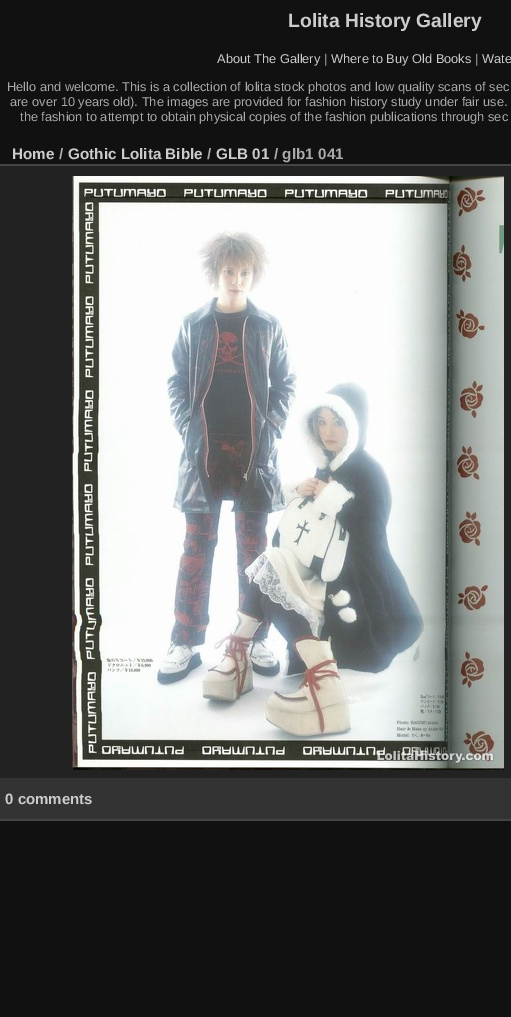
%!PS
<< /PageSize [511 1017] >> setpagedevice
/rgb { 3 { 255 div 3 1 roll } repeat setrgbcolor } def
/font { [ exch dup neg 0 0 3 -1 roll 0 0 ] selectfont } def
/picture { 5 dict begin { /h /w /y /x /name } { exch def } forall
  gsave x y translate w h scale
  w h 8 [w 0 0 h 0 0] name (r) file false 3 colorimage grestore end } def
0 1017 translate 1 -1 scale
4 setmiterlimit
17 17 17 rgb
0 0 511 1017 rectfill
[
  [0 166 511 612 34 34 34]
  [0 819 511 2 68 68 68]
  [0 164 511 2 68 68 68]
] { aload pop rgb rectfill } forall
(img/1.rgb) 72 176 432 594 picture
51 51 51 rgb
0 778 511 41 rectfill
/LiberationSans-Bold 19.25 font
204 204 204 rgb
288 27 moveto (Lolita History Gallery) show
/LiberationSans-Regular 12.8 font
217 63 moveto (About The Gallery) show
170 170 170 rgb
324 63 moveto (|) show
204 204 204 rgb
331 63 moveto (Where to Buy Old Books) show
170 170 170 rgb
475 63 moveto (|) show
204 204 204 rgb
482 63 moveto (Wate) show
170 170 170 rgb
[
  [(Hello and welcome. This is a collection of lolita stock photos and low quality scans of sec) 7 91]
  [(are over 10 years old\). The images are provided for fashion history study under fair use.) 10 106]
  [(the fashion to attempt to obtain physical copies of the fashion publications through sec) 20 121]
] { aload pop moveto show } forall
/LiberationSans-Bold 15.25 font
204 204 204 rgb
12 159 moveto (Home) show
170 170 170 rgb
59 159 moveto (/) show
204 204 204 rgb
68 159 moveto (Gothic Lolita Bible) show
170 170 170 rgb
207 159 moveto (/) show
204 204 204 rgb
216 159 moveto (GLB 01) show
170 170 170 rgb
274 159 moveto (/ glb1 041) show
/LiberationSans-Bold 15 font
204 204 204 rgb
5 804 moveto (0 comments) show
showpage
